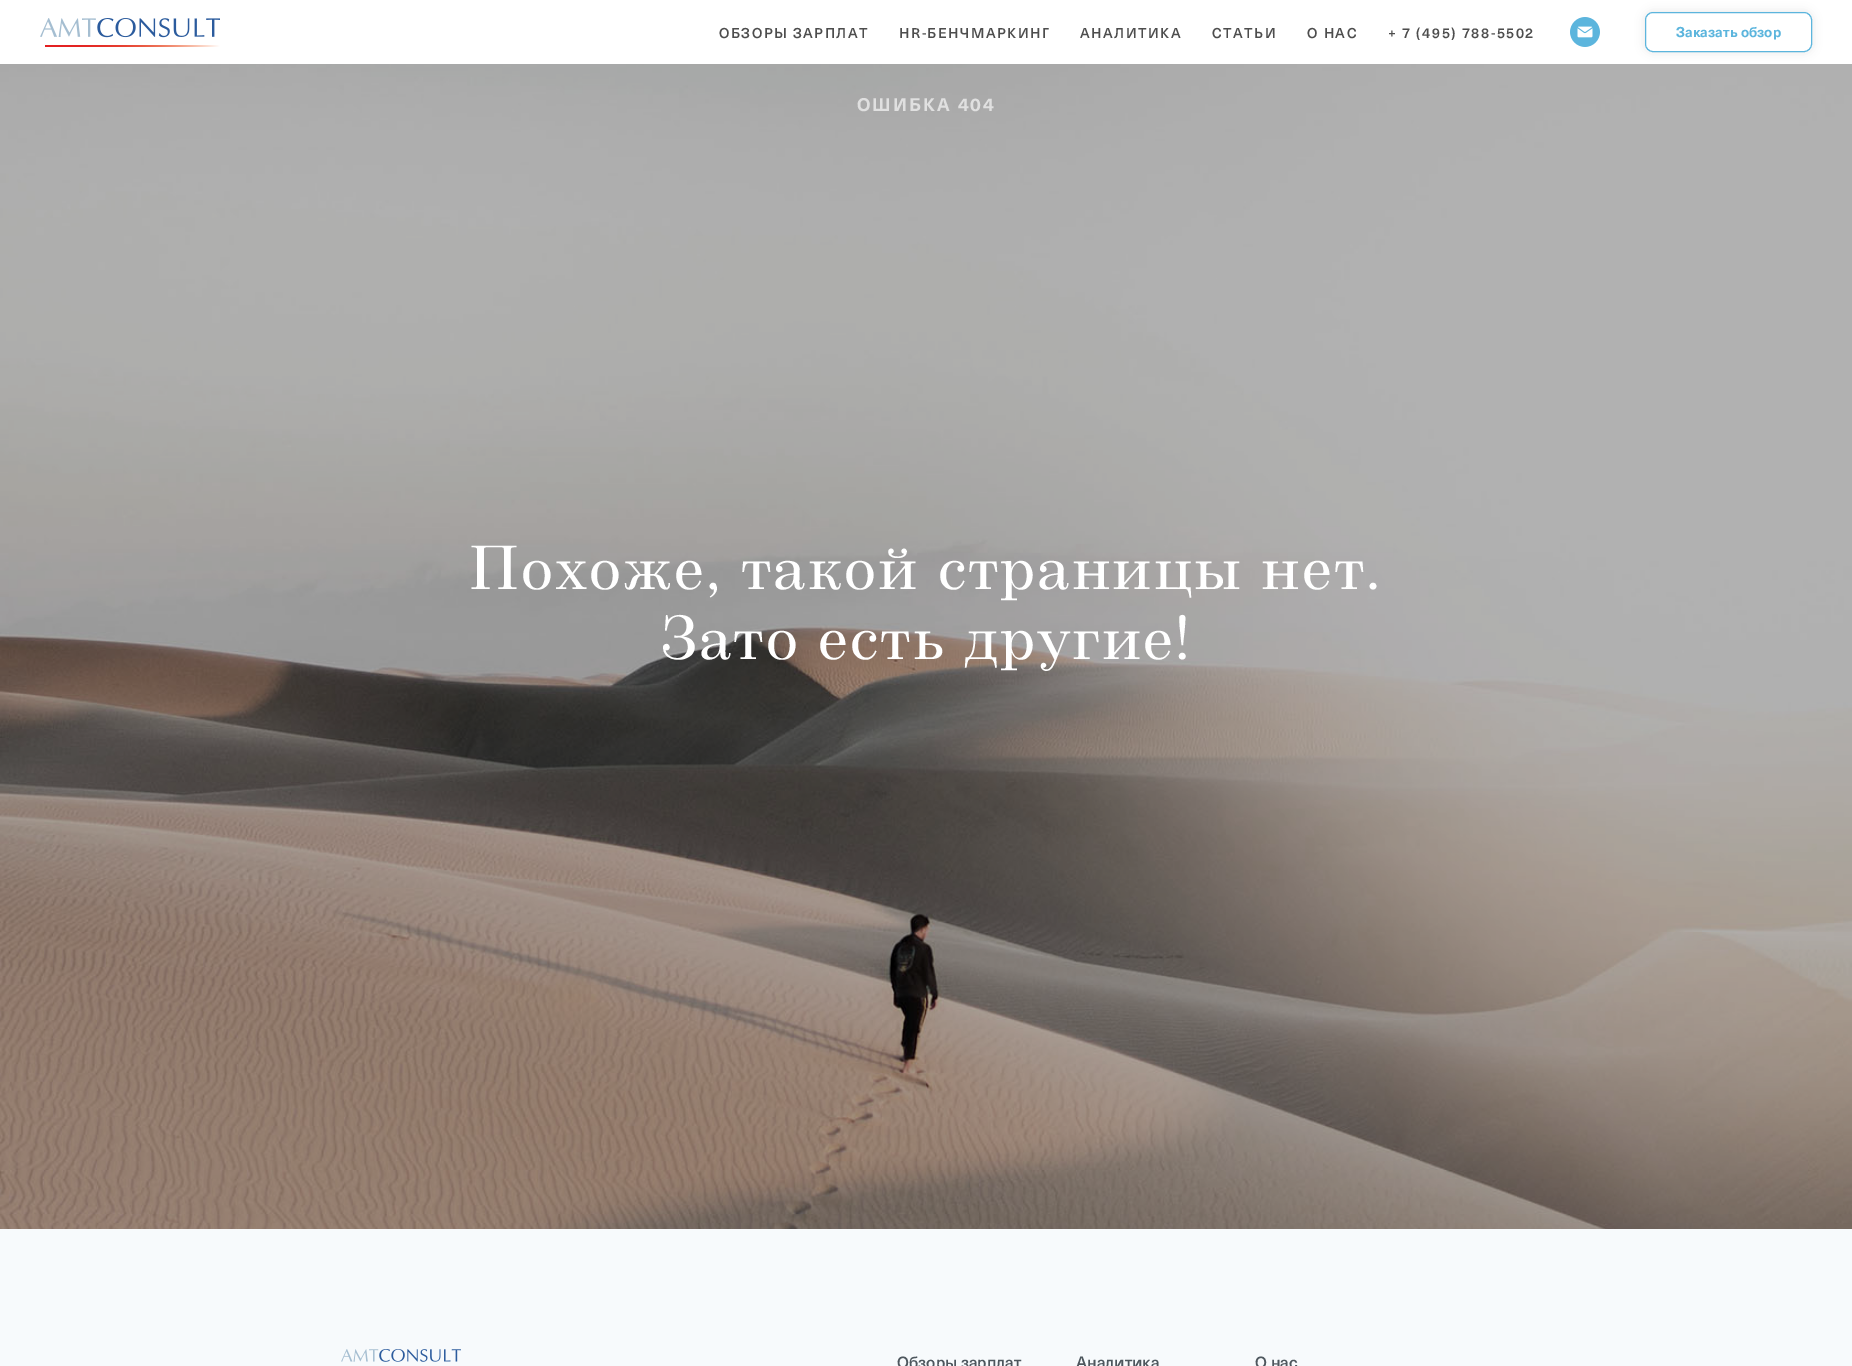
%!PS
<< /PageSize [1852 1366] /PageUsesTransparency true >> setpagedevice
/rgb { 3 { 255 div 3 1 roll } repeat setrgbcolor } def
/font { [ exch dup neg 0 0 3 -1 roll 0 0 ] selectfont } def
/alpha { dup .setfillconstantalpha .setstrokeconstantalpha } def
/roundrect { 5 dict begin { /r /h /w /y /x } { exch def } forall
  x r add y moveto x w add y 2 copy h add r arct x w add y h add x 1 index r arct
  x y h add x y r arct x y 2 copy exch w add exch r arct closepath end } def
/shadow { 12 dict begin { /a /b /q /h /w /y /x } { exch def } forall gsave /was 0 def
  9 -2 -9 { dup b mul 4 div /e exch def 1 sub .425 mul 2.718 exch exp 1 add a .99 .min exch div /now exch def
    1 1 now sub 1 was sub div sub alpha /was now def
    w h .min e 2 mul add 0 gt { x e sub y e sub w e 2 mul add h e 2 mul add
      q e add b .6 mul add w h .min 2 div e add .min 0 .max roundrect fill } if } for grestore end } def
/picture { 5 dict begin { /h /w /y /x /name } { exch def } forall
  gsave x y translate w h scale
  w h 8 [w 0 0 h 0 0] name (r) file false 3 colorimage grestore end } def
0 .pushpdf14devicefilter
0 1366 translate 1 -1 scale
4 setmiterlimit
247 250 252 rgb
0 0 1852 1366 rectfill
255 255 255 rgb
0 0 1852 64 rectfill
(img/1.rgb) 40 18 180 29 picture
(img/2.rgb) 1570 17 30 30 picture
(img/3.rgb) 0 64 1852 1165 picture
0 0 0 rgb
1645 12 167 40 8 5 0.1 shadow
255 255 255 rgb
1645.5 12.5 166 39 7.5 roundrect gsave fill grestore
92 181 221 rgb
stroke
(img/4.rgb) 341 1349 120 13 picture
/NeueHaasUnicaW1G-Medium 14 font
77 77 77 rgb
719 38 moveto 1.5 0 (ОБЗОРЫ ЗАРПЛАТ) ashow
899 38 moveto 1.5 0 (HR-БЕНЧМАРКИНГ) ashow
1080 38 moveto 1.5 0 (АНАЛИТИКА) ashow
1212 38 moveto 1.5 0 (СТАТЬИ) ashow
1307 38 moveto 1.5 0 (О НАС) ashow
1388 38 moveto 1.5 0 (+ 7 \(495\) 788-5502) ashow
/NeueHaasUnicaW1G-Bold 14 font
92 181 221 rgb
1676 37 moveto (Заказать обзор) show
/NeueHaasUnicaW1G-Bold 18 font
224 224 224 rgb
857 111 moveto 2 0 (ОШИБКА 404) ashow
/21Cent-Regular 60 font
255 255 255 rgb
469 589 moveto 2 0 (Похоже, такой страницы нет.) ashow
661 659 moveto 2 0 (Зато есть другие!) ashow
/NeueHaasUnicaW1G-Medium 16 font
78 87 94 rgb
[
  [(Обзоры зарплат) 897 1368]
  [(Аналитика) 1076 1368]
  [(О нас) 1255 1368]
] { aload pop moveto show } forall
.poppdf14devicefilter showpage
